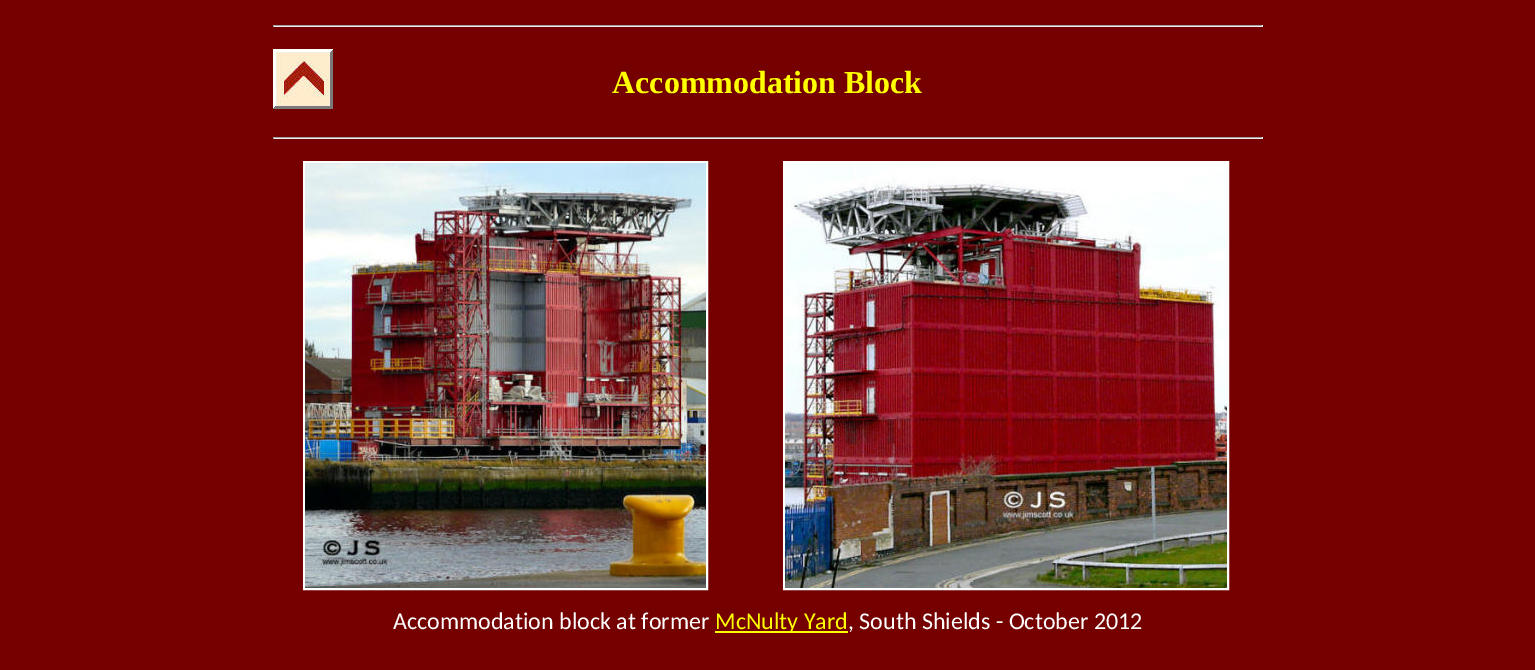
%!PS
<< /PageSize [1535 670] >> setpagedevice
/rgb { 3 { 255 div 3 1 roll } repeat setrgbcolor } def
/font { [ exch dup neg 0 0 3 -1 roll 0 0 ] selectfont } def
/picture { 5 dict begin { /h /w /y /x /name } { exch def } forall
  gsave x y translate w h scale
  w h 8 [w 0 0 h 0 0] name (r) file false 3 colorimage grestore end } def
0 670 translate 1 -1 scale
4 setmiterlimit
117 0 0 rgb
0 0 1535 670 rectfill
[
  [273 25 990 1 159 159 159]
  [1262 25 1 2 238 238 238]
  [273 26 990 1 238 238 238]
  [273 25 1 2 159 159 159]
] { aload pop rgb rectfill } forall
(img/1.rgb) 273 49 60 60 picture
[
  [273 137 990 1 159 159 159]
  [1262 137 1 2 238 238 238]
  [273 138 990 1 238 238 238]
  [273 137 1 2 159 159 159]
] { aload pop rgb rectfill } forall
255 255 255 rgb
2 setlinewidth
304 162 403 427 rectstroke
(img/2.rgb) 305 163 401 425 picture
784 162 444 427 rectstroke
(img/3.rgb) 785 163 442 425 picture
255 255 0 rgb
715 631 133 2 rectfill
/LiberationSerif-Bold 32 font
612 93 moveto (Accommodation Block) show
/Carlito-Regular 24 font
255 255 255 rgb
393 629 moveto (Accommodation block at former) show
255 255 0 rgb
715 629 moveto (McNulty Yard) show
255 255 255 rgb
848 629 moveto (, South Shields - October 2012) show
showpage
